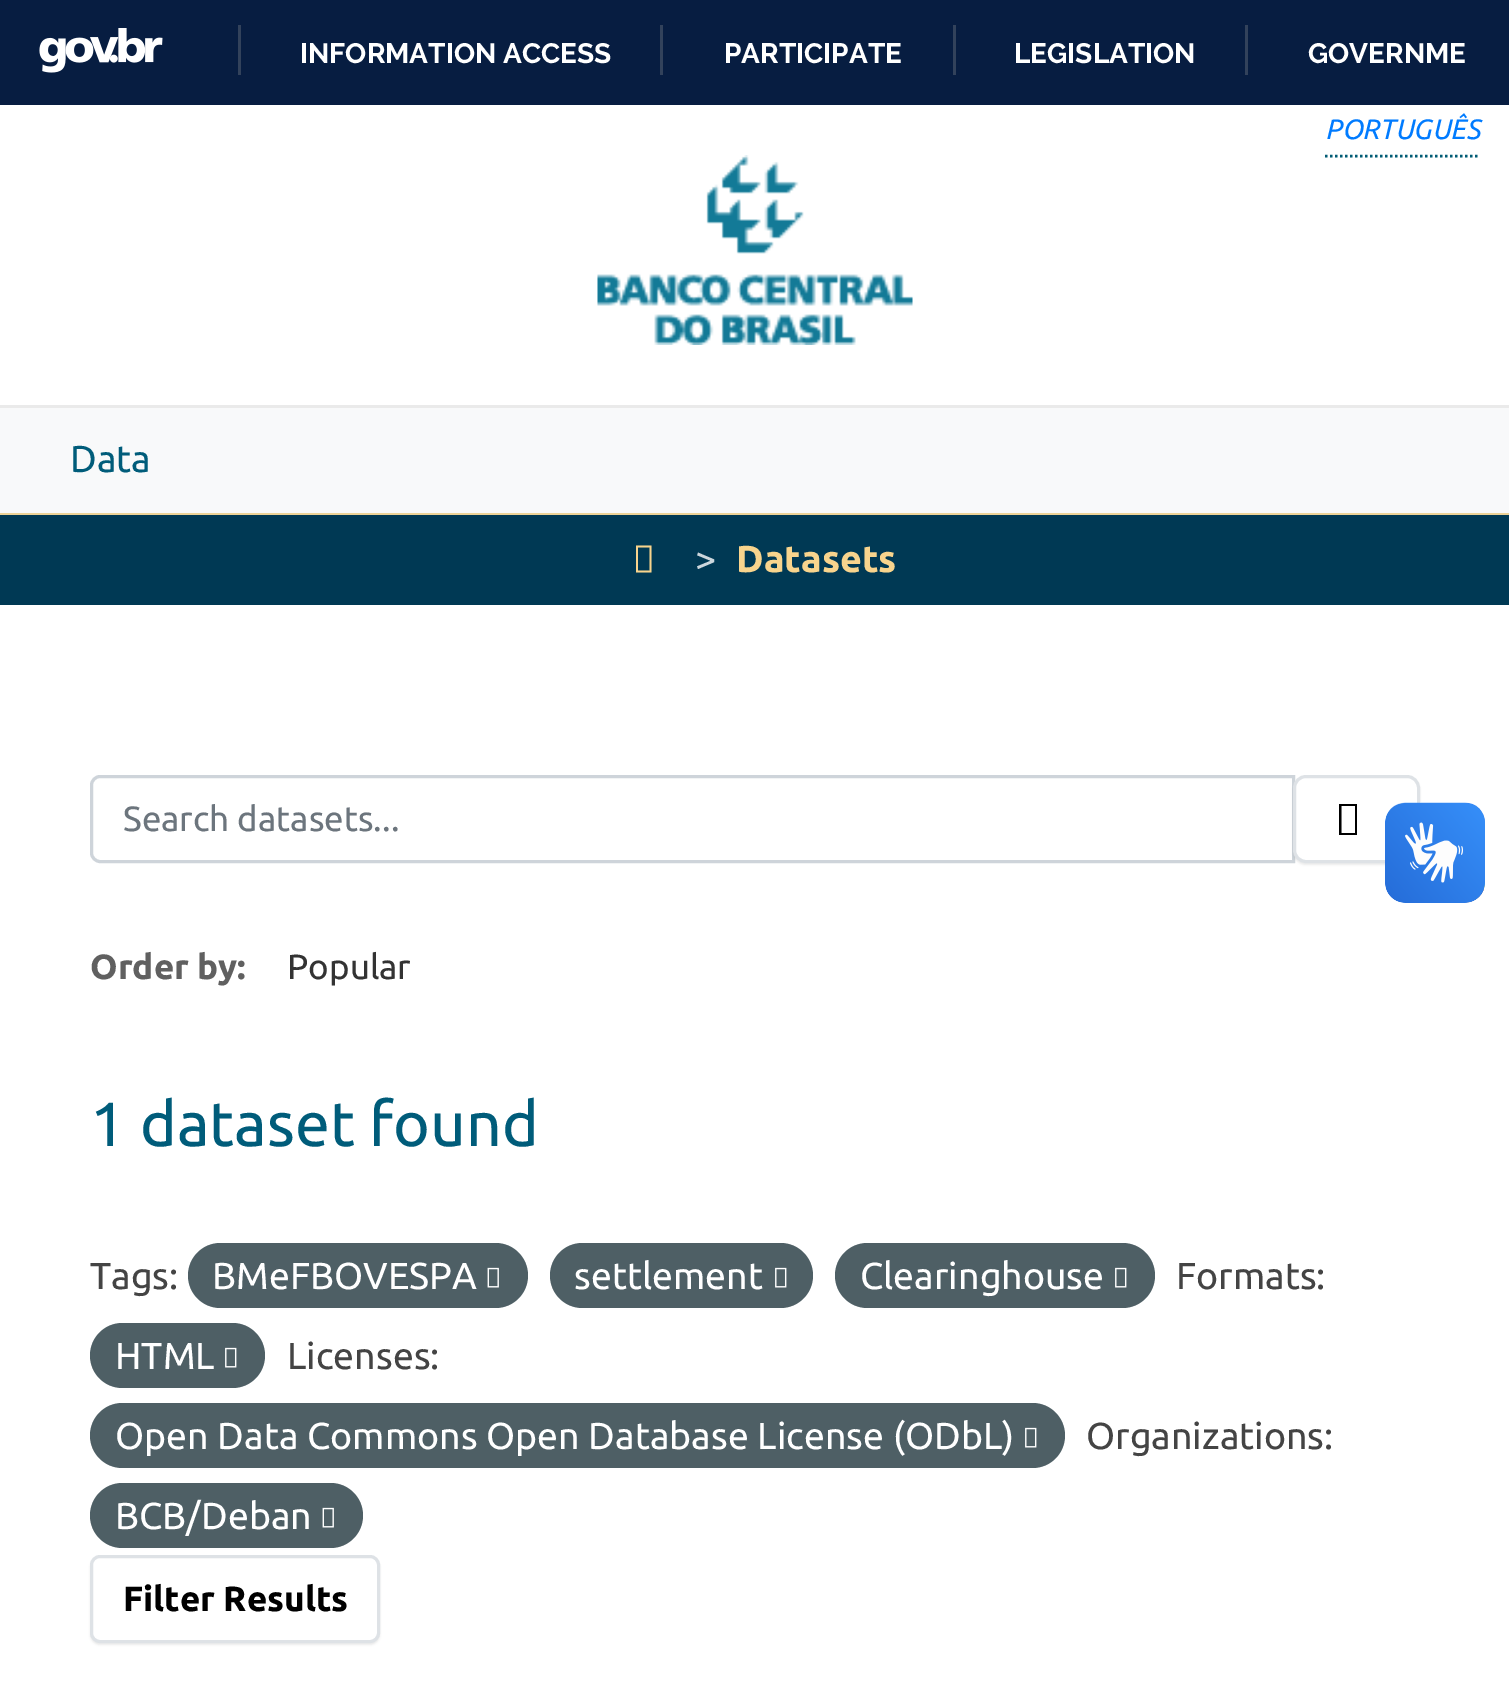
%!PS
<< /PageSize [1509 1702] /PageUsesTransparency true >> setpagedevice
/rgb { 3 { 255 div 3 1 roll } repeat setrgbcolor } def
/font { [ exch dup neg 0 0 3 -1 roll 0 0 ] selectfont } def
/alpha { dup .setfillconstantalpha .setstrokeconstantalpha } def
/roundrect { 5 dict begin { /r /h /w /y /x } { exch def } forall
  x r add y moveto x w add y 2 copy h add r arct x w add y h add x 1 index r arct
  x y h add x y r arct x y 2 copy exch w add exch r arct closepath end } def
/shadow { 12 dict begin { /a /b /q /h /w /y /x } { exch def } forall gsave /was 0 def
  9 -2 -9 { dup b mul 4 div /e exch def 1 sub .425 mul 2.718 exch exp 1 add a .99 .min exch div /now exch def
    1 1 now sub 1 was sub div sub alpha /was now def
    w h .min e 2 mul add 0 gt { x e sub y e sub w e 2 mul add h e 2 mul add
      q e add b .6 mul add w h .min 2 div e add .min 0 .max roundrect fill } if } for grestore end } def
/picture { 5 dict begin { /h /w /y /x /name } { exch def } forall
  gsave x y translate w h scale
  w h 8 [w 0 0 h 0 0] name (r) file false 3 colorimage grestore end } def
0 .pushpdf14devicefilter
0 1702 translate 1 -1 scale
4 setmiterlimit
255 255 255 rgb
0 0 1509 1702 rectfill
7 29 65 rgb
0 0 1509 105 rectfill
(img/1.rgb) 39 28 124 45 picture
[
  [238 25 3 50 50 66 91]
  [660 25 3 50 50 66 91]
  [953 25 3 50 50 66 91]
  [1245 25 3 50 50 66 91]
] { aload pop rgb rectfill } forall
2 92 117 rgb
2.5 setlinewidth
[2.5 2.5] 0 setdash
1325 156 moveto 1480 156 lineto stroke
(img/2.rgb) 597 155 316 190 picture
[
  [0 408 1509 105 248 249 250]
  [0 405 1509 3 234 234 234]
  [0 513 1509 2 237 210 151]
  [0 515 1509 90 0 57 84]
] { aload pop rgb rectfill } forall
248 212 141 rgb
636 572.5 moveto 636 545.5 lineto 651.5 545.5 lineto 651.5 572.5 lineto closepath 638 570.5 moveto 649.5 570.5 lineto 649.5 547.5 lineto 638 547.5 lineto closepath fill
206 212 218 rgb
3 setlinewidth
[] 0 setdash
100 776.5 moveto 1293.5 776.5 lineto 1293.5 861.5 lineto 100 861.5 lineto 95.5 861.5 91.5 857.5 91.5 853 curveto 91.5 785 lineto 91.5 780.5 95.5 776.5 100 776.5 curveto closepath stroke
0 0 0 rgb
1293 778 127 87 13 1 0.07 shadow
255 255 255 rgb
1294.5 776.5 124 85 11.5 roundrect gsave fill grestore
222 226 230 rgb
stroke
0 0 0 rgb
1339 835 moveto 1339 804 lineto 1357 804 lineto 1357 835 lineto closepath 1341.5 833 moveto 1355 833 lineto 1355 806 lineto 1341.5 806 lineto closepath fill
78 95 101 rgb
188 1243 340 65 32.5 roundrect fill
(img/3.rgb) 487 1267 12 21 picture
550 1243 263 65 32.5 roundrect fill
(img/4.rgb) 775 1267 12 21 picture
835 1243 320 65 32.5 roundrect fill
(img/4.rgb) 1115 1267 12 21 picture
90 1323 175 65 32.5 roundrect fill
(img/4.rgb) 225 1347 12 21 picture
90 1403 975 65 32.5 roundrect fill
(img/4.rgb) 1025 1427 12 21 picture
90 1483 273 65 32.5 roundrect fill
(img/3.rgb) 322 1507 12 21 picture
0 0 0 rgb
90 1558 290 87 10 1 0.07 shadow
255 255 255 rgb
91.5 1556.5 287 85 8.5 roundrect gsave fill grestore
222 226 230 rgb
stroke
(img/5.rgb) 1385 802 100 101 picture
(img/6.rgb) 1385 803 100 100 picture
/Raleway-Bold 28 font
255 255 255 rgb
[
  [(INFORMATION ACCESS) 300 63]
  [(PARTICIPATE) 724 63]
  [(LEGISLATION) 1014 63]
  [(GOVERNME) 1308 63]
] { aload pop moveto show } forall
/Ubuntu-Italic 28 font
0 123 255 rgb
1325 139 moveto (PORTUGUÊS) show
/Ubuntu-Regular 37.5 font
0 92 122 rgb
70 472 moveto (Data) show
204 215 221 rgb
695 572 moveto (>) show
/Ubuntu-Bold 37.5 font
248 212 141 rgb
736 572 moveto (Datasets) show
/Ubuntu-Regular 35 font
108 117 125 rgb
123 831 moveto (Search datasets...) show
/Ubuntu-Bold 35 font
96 96 96 rgb
90 979 moveto (Order by:) show
/Ubuntu-Regular 35 font
51 51 51 rgb
287 979 moveto (Popular) show
/Ubuntu-Regular 62.5 font
0 92 122 rgb
90 1146 moveto (1 dataset found) show
/Ubuntu-Regular 37.5 font
68 68 68 rgb
90 1289 moveto (Tags:) show
255 255 255 rgb
[
  [(BMeFBOVESPA) 212 1289]
  [(settlement) 574 1289]
  [(Clearinghouse) 860 1289]
] { aload pop moveto show } forall
68 68 68 rgb
1176 1289 moveto (Formats:) show
255 255 255 rgb
115 1369 moveto (HTML) show
68 68 68 rgb
287 1369 moveto (Licenses:) show
255 255 255 rgb
115 1449 moveto (Open Data Commons Open Database License \(ODbL\)) show
68 68 68 rgb
1086 1449 moveto (Organizations:) show
255 255 255 rgb
115 1529 moveto (BCB/Deban) show
/Ubuntu-Bold 35 font
0 0 0 rgb
123 1611 moveto (Filter Results) show
.poppdf14devicefilter showpage
